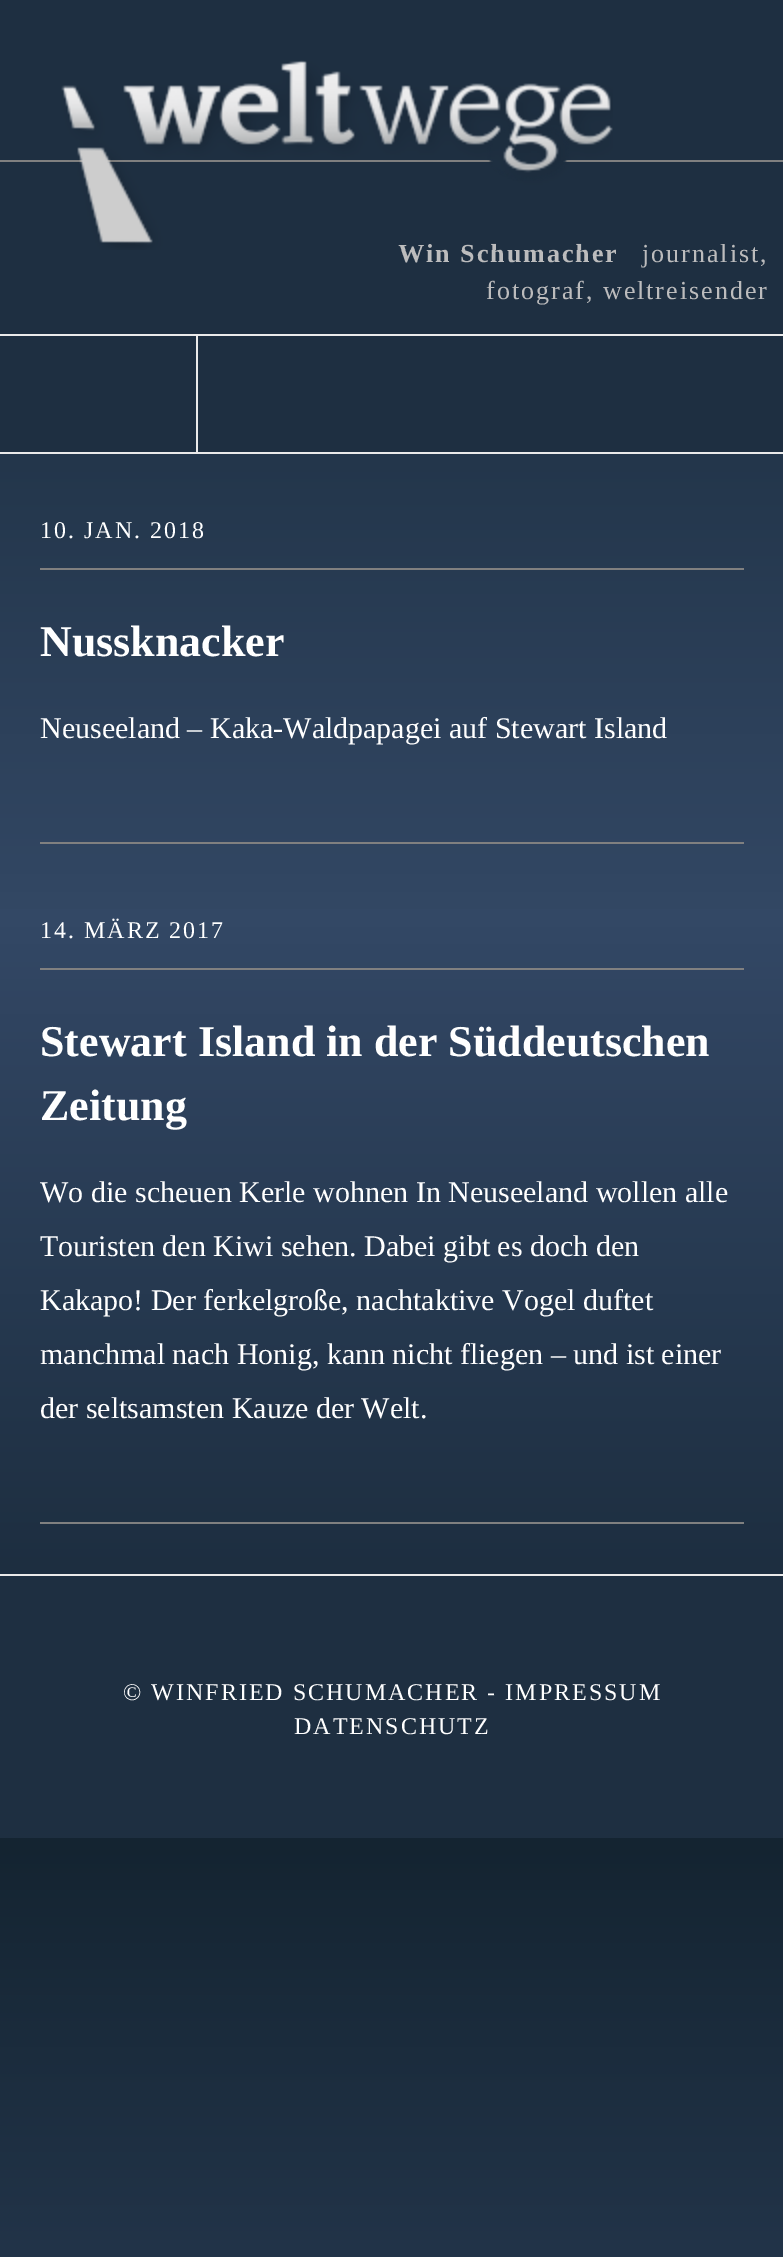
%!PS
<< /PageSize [783 2257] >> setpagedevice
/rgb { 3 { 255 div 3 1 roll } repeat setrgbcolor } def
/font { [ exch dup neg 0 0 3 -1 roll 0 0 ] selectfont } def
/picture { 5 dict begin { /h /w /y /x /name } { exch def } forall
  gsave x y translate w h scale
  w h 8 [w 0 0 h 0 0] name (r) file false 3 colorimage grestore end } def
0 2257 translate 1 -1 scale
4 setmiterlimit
255 255 255 rgb
0 0 783 2257 rectfill
gsave 0 454 moveto 783 454 lineto 783 1574 lineto 0 1574 lineto closepath clip newpath
<< /ShadingType 2 /ColorSpace /DeviceRGB /Coords [392 0 392 1838] /Extend [true true] /Function << /FunctionType 3 /Domain [0 1] /Functions [<< /FunctionType 2 /Domain [0 1] /C0 [0.078 0.141 0.192] /C1 [0.2 0.282 0.396] /N 1 >> << /FunctionType 2 /Domain [0 1] /C0 [0.2 0.282 0.396] /C1 [0.078 0.141 0.192] /N 1 >>] /Bounds [0.5] /Encode [0 1 0 1] >> >> shfill grestore
gsave 0 1838 moveto 783 1838 lineto 783 2257 lineto 0 2257 lineto closepath clip newpath
<< /ShadingType 2 /ColorSpace /DeviceRGB /Coords [392 1838 392 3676] /Extend [true true] /Function << /FunctionType 3 /Domain [0 1] /Functions [<< /FunctionType 2 /Domain [0 1] /C0 [0.078 0.141 0.192] /C1 [0.2 0.282 0.396] /N 1 >> << /FunctionType 2 /Domain [0 1] /C0 [0.2 0.282 0.396] /C1 [0.078 0.141 0.192] /N 1 >>] /Bounds [0.5] /Encode [0 1 0 1] >> >> shfill grestore
[
  [0 0 783 452 30 47 65]
  [0 160 783 2 128 128 128]
  [0 334 783 2 234 234 234]
  [0 452 783 2 234 234 234]
  [196 334 2 120 234 234 234]
  [40 568 704 2 128 128 128]
  [40 842 704 2 128 128 128]
  [40 968 704 2 128 128 128]
  [40 1522 704 2 128 128 128]
  [0 1576 783 262 30 47 65]
  [0 1574 783 2 234 234 234]
] { aload pop rgb rectfill } forall
/LiberationSerif-Bold 26 font
188 188 189 rgb
398 262 moveto 2 0 (Win Schumacher) ashow
(img/1.rgb) 61 60 552 190 picture
/LiberationSerif-Regular 26 font
642 262 moveto 2 0 (journalist,) ashow
486 299 moveto 2 0 (fotograf, weltreisender) ashow
/LiberationSerif-Regular 24 font
255 255 255 rgb
40 538 moveto 2 0 (10. JAN. 2018) ashow
/LiberationSerif-Bold 44 font
40 656 moveto (Nussknacker) show
/LiberationSerif-Regular 30 font
40 738 moveto (Neuseeland – Kaka-Waldpapagei auf Stewart Island) show
/LiberationSerif-Regular 24 font
40 938 moveto 2 0 (14. MÄRZ 2017) ashow
/LiberationSerif-Bold 44 font
40 1056 moveto (Stewart Island in der Süddeutschen) show
40 1120 moveto (Zeitung) show
/LiberationSerif-Regular 30 font
[
  [(Wo die scheuen Kerle wohnen In Neuseeland wollen alle) 40 1202]
  [(Touristen den Kiwi sehen. Dabei gibt es doch den) 40 1256]
  [(Kakapo! Der ferkelgroße, nachtaktive Vogel duftet) 40 1310]
  [(manchmal nach Honig, kann nicht fliegen – und ist einer) 40 1364]
  [(der seltsamsten Kauze der Welt.) 40 1418]
] { aload pop moveto show } forall
/LiberationSerif-Regular 24 font
123 1700 moveto 2 0 (© WINFRIED SCHUMACHER - IMPRESSUM) ashow
294 1734 moveto 2 0 (DATENSCHUTZ) ashow
showpage
